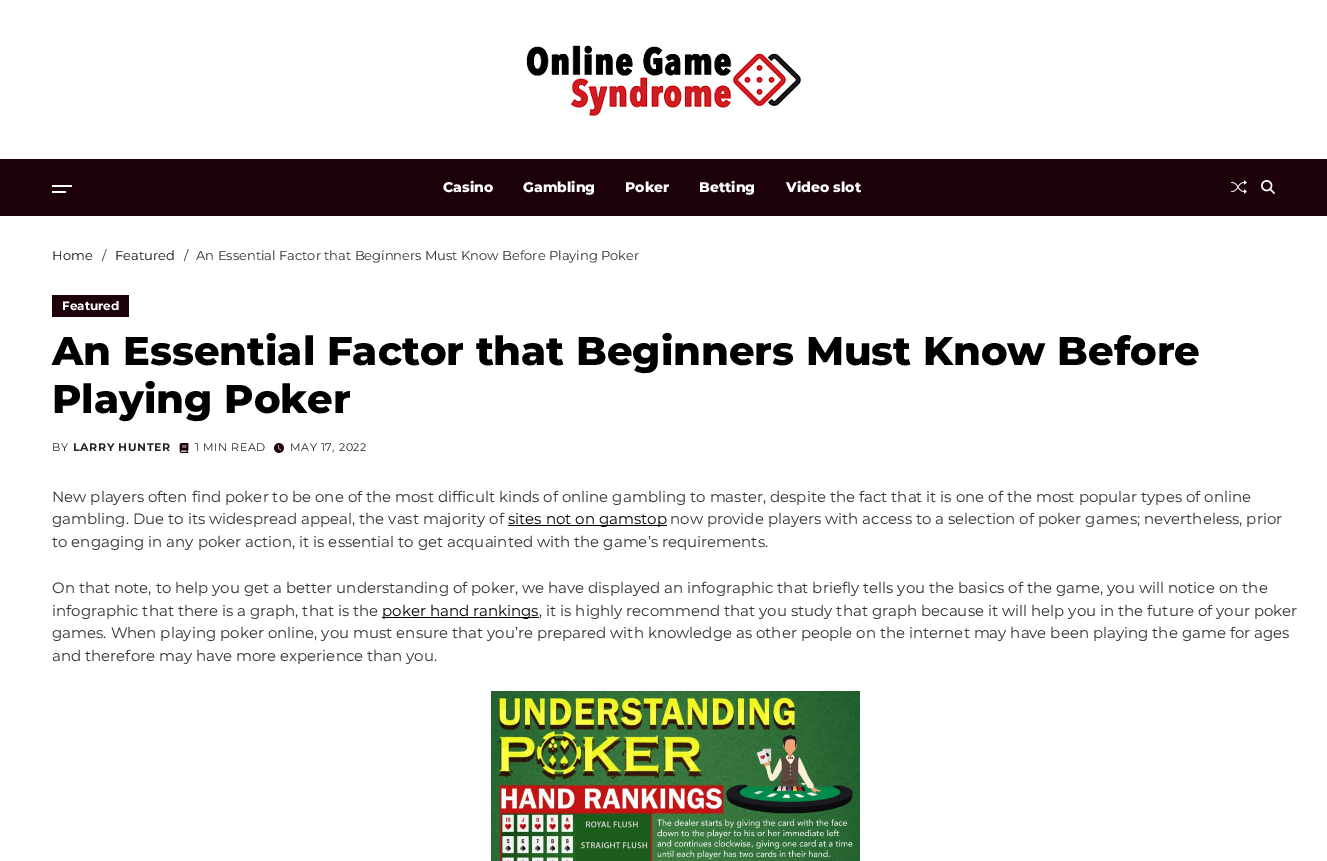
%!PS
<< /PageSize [1327 861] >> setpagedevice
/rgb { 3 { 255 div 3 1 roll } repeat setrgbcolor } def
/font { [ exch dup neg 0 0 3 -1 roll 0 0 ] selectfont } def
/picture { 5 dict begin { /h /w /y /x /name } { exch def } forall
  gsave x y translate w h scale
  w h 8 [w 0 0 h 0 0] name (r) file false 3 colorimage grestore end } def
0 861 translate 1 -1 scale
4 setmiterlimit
255 255 255 rgb
0 0 1327 861 rectfill
(img/1.rgb) 526 45 276 72 picture
[
  [0 159 1327 57 29 2 11]
  [52 185 20 2 255 255 255]
  [52 191 14 2 255 255 255]
] { aload pop rgb rectfill } forall
(img/2.rgb) 1231 180 16 14 picture
(img/3.rgb) 1261 180 14 14 picture
29 2 11 rgb
52 295 77 22 rectfill
(img/4.rgb) 179 443 10 10 picture
(img/5.rgb) 274 443 10 10 picture
0 0 0 rgb
508 525 159 1 rectfill
382 617 157 1 rectfill
(img/6.rgb) 491 691 369 170 picture
/Montserrat-ExtraBold 14 font
255 255 255 rgb
[
  [(Casino) 443 192]
  [(Gambling) 523 192]
  [(Poker) 625 192]
  [(Betting) 699 192]
  [(Video slot) 786 192]
] { aload pop moveto show } forall
/Montserrat-Regular 13 font
17 17 17 rgb
52 260 moveto (Home) show
49 49 49 rgb
102 260 moveto (/) show
17 17 17 rgb
115 260 moveto (Featured) show
49 49 49 rgb
184 260 moveto (/) show
196 260 moveto (An Essential Factor that Beginners Must Know Before Playing Poker) show
/Montserrat-Bold 12 font
255 255 255 rgb
62 310 moveto (Featured) show
/Montserrat-ExtraBold 40 font
0 0 0 rgb
52 365 moveto (An Essential Factor that Beginners Must Know Before) show
52 413 moveto (Playing Poker) show
/Montserrat-Regular 11 font
33 37 41 rgb
52 451 moveto 0.6 0 (BY) ashow
/Montserrat-Bold 11 font
73 451 moveto 0.6 0 (LARRY HUNTER) ashow
/Montserrat-Regular 11 font
195 451 moveto 0.6 0 (1 MIN READ) ashow
290 451 moveto 0.6 0 (MAY 17, 2022) ashow
/Montserrat-Regular 15 font
49 49 49 rgb
52 502 moveto (New players often find poker to be one of the most difficult kinds of online gambling to master, despite the fact that it is one of the most popular types of online) show
52 524 moveto (gambling. Due to its widespread appeal, the vast majority of) show
0 0 0 rgb
508 524 moveto (sites not on gamstop) show
49 49 49 rgb
[
  [(now provide players with access to a selection of poker games; nevertheless, prior) 670 524]
  [(to engaging in any poker action, it is essential to get acquainted with the game’s requirements.) 52 547]
  [(On that note, to help you get a better understanding of poker, we have displayed an infographic that briefly tells you the basics of the game, you will notice on the) 52 593]
  [(infographic that there is a graph, that is the) 52 616]
] { aload pop moveto show } forall
0 0 0 rgb
382 616 moveto (poker hand rankings) show
49 49 49 rgb
[
  [(, it is highly recommend that you study that graph because it will help you in the future of your poker) 539 616]
  [(games. When playing poker online, you must ensure that you’re prepared with knowledge as other people on the internet may have been playing the game for ages) 52 638]
  [(and therefore may have more experience than you.) 52 661]
] { aload pop moveto show } forall
showpage
